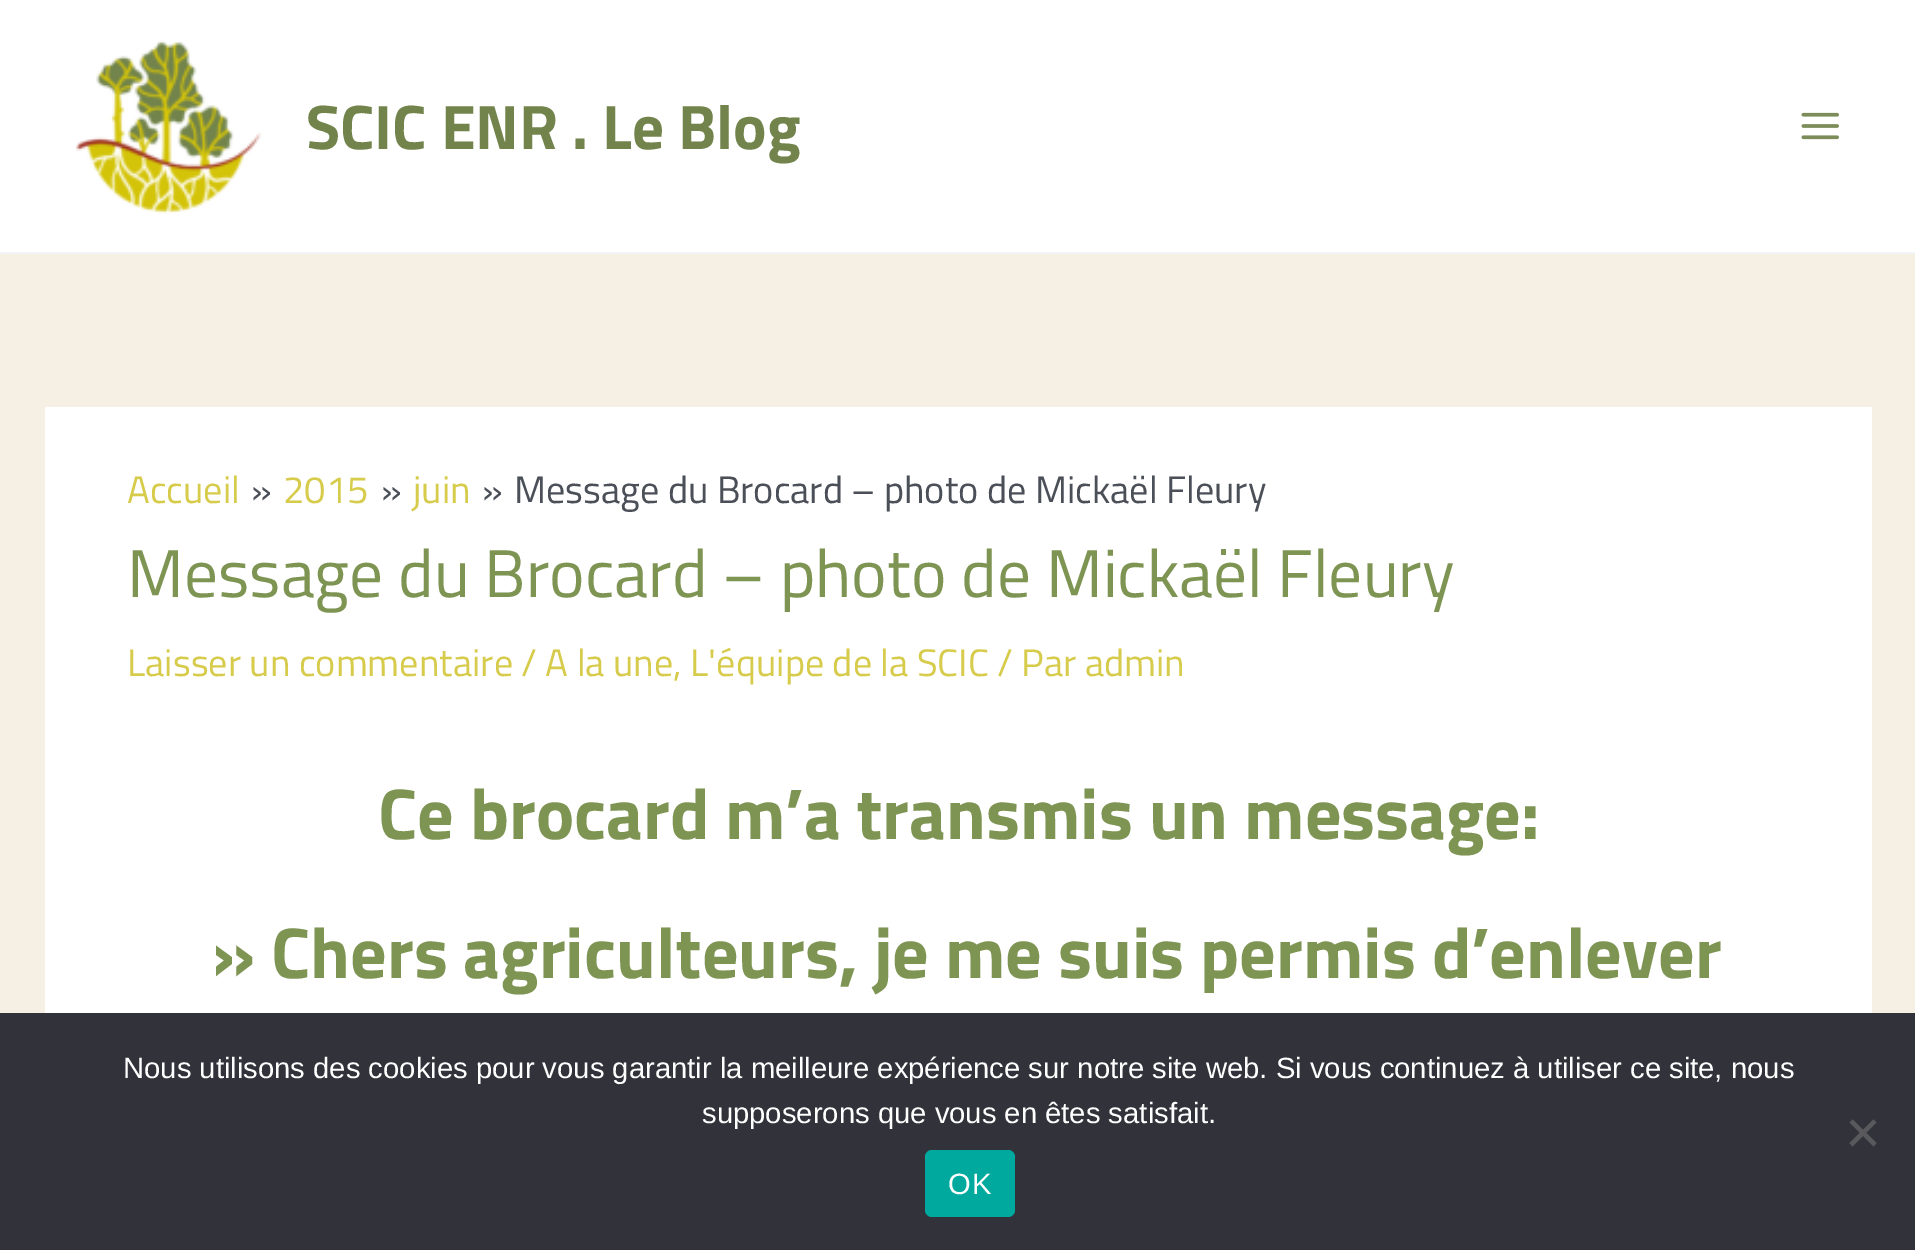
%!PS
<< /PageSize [1915 1250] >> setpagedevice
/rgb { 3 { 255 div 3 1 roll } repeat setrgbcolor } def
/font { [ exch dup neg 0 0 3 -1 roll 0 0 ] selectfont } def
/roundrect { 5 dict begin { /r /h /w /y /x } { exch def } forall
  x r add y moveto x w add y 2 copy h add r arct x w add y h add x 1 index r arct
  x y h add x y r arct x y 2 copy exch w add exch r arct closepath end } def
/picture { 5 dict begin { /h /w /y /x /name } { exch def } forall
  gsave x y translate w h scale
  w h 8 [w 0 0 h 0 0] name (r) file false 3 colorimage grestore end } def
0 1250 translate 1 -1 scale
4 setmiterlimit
245 240 227 rgb
0 0 1915 1250 rectfill
255 255 255 rgb
0 0 1915 252 rectfill
242 245 247 rgb
0 252 1915 2 rectfill
(img/1.rgb) 76 40 186 174 picture
(img/2.rgb) 1801 112 38 28 picture
255 255 255 rgb
45 407 1827 606 rectfill
50 50 58 rgb
0 1013 1915 237 rectfill
89 89 93 rgb
1873.5 1119.5 moveto 1876.5 1122.5 lineto 1852.5 1146.5 lineto 1849.5 1143 lineto closepath fill
1849.5 1122.5 moveto 1852.5 1119.5 lineto 1876.5 1143 lineto 1873.5 1146.5 lineto closepath fill
0 169 157 rgb
925 1150 90 67 7 roundrect fill
/TitilliumWeb-Bold 63 font
114 132 76 rgb
306 149 moveto (SCIC ENR . Le Blog) show
/TitilliumWeb-Regular 38.25 font
215 203 75 rgb
127 503 moveto (Accueil) show
75 79 88 rgb
251 503 moveto (») show
215 203 75 rgb
283 503 moveto (2015) show
75 79 88 rgb
381 503 moveto (») show
215 203 75 rgb
413 503 moveto (juin) show
75 79 88 rgb
482 503 moveto (») show
514 503 moveto (Message du Brocard – photo de Mickaël Fleury) show
/TitilliumWeb-Regular 67.5 font
126 148 82 rgb
127 597 moveto (Message du Brocard – photo de Mickaël Fleury) show
/TitilliumWeb-Regular 38.25 font
215 203 75 rgb
127 676 moveto (Laisser un commentaire / A la une, L'équipe de la SCIC / Par admin) show
/TitilliumWeb-Bold 72 font
126 148 82 rgb
378 839 moveto (Ce brocard m’a transmis un message:) show
212 978 moveto (» Chers agriculteurs, je me suis permis d’enlever) show
/LiberationSans-Regular 29.25 font
255 255 255 rgb
123 1078 moveto (Nous utilisons des cookies pour vous garantir la meilleure expérience sur notre site web. Si vous continuez à utiliser ce site, nous) show
702 1123 moveto (supposerons que vous en êtes satisfait.) show
948 1194 moveto 1 0 (OK) ashow
showpage
